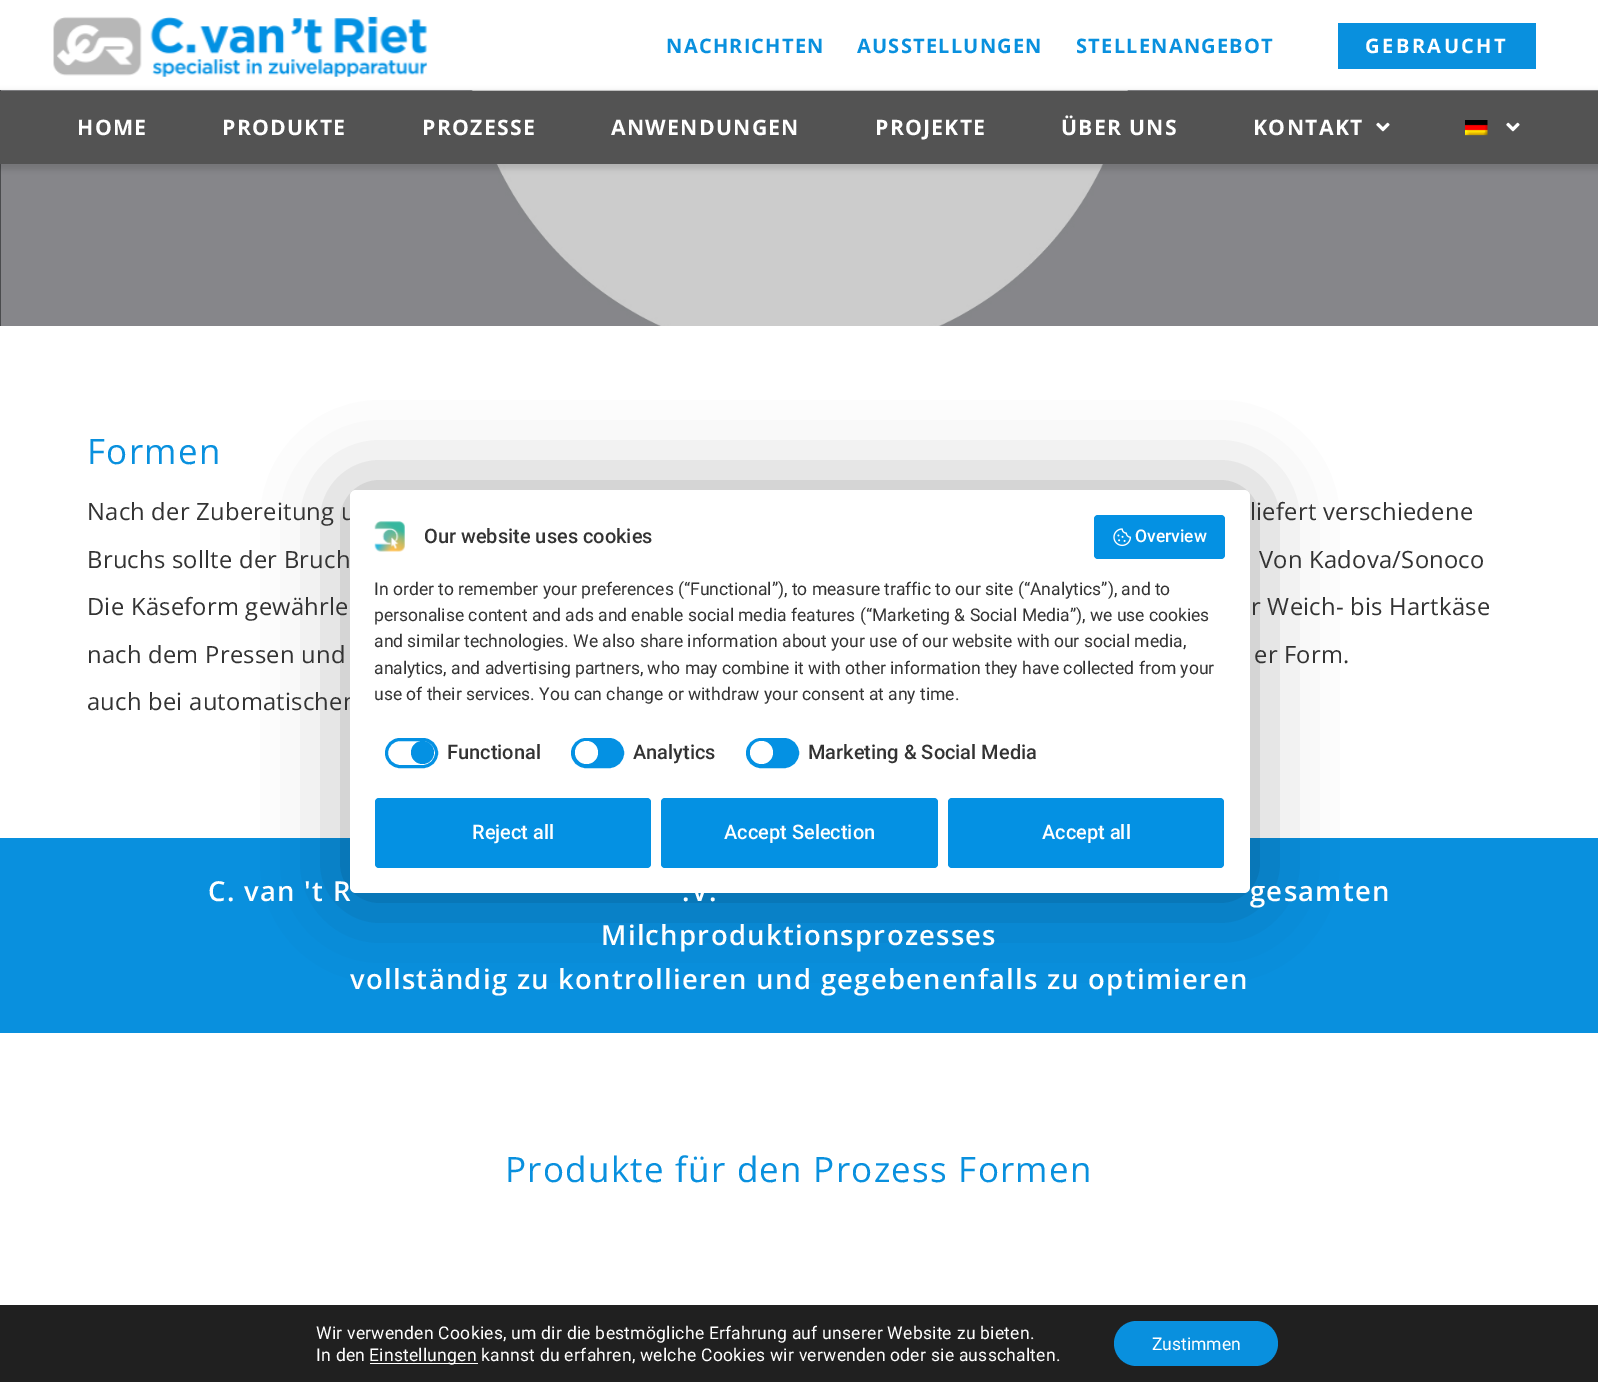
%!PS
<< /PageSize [1598 1382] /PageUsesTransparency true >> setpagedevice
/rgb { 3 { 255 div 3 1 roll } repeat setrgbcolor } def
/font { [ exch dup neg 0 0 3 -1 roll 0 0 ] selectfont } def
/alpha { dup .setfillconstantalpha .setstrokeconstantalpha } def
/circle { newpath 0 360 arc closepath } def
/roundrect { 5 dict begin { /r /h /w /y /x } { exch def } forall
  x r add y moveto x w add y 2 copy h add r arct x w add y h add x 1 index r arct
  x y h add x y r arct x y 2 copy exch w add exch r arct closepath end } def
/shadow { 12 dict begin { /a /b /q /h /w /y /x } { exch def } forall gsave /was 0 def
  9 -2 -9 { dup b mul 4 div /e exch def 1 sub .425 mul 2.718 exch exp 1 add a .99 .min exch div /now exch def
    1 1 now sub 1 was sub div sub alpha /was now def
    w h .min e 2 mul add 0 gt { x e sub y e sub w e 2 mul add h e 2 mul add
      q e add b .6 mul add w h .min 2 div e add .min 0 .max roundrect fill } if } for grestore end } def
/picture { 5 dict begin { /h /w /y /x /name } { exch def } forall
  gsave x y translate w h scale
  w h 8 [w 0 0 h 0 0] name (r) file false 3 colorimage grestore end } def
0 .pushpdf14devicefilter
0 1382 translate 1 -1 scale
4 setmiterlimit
255 255 255 rgb
0 0 1598 1382 rectfill
(img/1.rgb) 53 16 375 61 picture
9 144 222 rgb
1338 23 198 46 rectfill
(img/4.rgb) 0 90 1598 236 picture
0 0 0 rgb
-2 91 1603 78 0 2.5 0.13 shadow
83 83 83 rgb
0 91 1598 73 rectfill
(img/2.rgb) 1376 122 14 10 picture
(img/3.rgb) 1465 120 23 16 picture
(img/2.rgb) 1506 122 14 10 picture
9 144 222 rgb
0 838 1598 195 rectfill
0 0 0 rgb
350 490 900 403 6 40 0.33 shadow
32 32 32 rgb
0 1305 1598 77 rectfill
255 255 255 rgb
370 1363 108 1 rectfill
9 144 222 rgb
1114 1321 164 45 22.5 roundrect fill
/OpenSans-Bold 20 font
666 53 moveto 1.25 0 (NACHRICHTEN) ashow
857 53 moveto 1.25 0 (AUSSTELLUNGEN) ashow
1076 53 moveto 1.25 0 (STELLENANGEBOT) ashow
255 255 255 rgb
1365 53 moveto 2.5 0 (GEBRAUCHT) ashow
/OpenSans-Bold 21.25 font
77 135 moveto 1.25 0 (HOME) ashow
222 135 moveto 1.25 0 (PRODUKTE) ashow
422 135 moveto 1.25 0 (PROZESSE) ashow
611 135 moveto 1.25 0 (ANWENDUNGEN) ashow
875 135 moveto 1.25 0 (PROJEKTE) ashow
1061 135 moveto 1.25 0 (ÜBER UNS) ashow
1253 135 moveto 1.25 0 (KONTAKT) ashow
/OpenSans-Regular 35 font
9 144 222 rgb
87 464 moveto 1.25 0 (Formen) ashow
/OpenSans-Regular 23.75 font
51 51 51 rgb
87 520 moveto 0.25 0 (Nach der Zubereitung u) ashow
87 568 moveto 0.25 0 (Bruchs sollte der Bruch) ashow
87 615 moveto 0.25 0 (Die Käseform gewährle) ashow
87 663 moveto 0.25 0 (nach dem Pressen und) ashow
87 710 moveto 0.25 0 (auch bei automatischen) ashow
1250 520 moveto 0.25 0 (liefert verschiedene) ashow
1259 568 moveto 0.25 0 (Von Kadova/Sonoco) ashow
1251 615 moveto 0.25 0 (r Weich- bis Hartkäse) ashow
1254 663 moveto 0.25 0 (er Form.) ashow
/OpenSans-SemiBold 27.5 font
255 255 255 rgb
208 901 moveto 1.25 0 (C. van 't R) ashow
682 901 moveto 1.25 0 (.V.) ashow
1250 901 moveto 1.25 0 (gesamten) ashow
601 945 moveto 1.25 0 (Milchproduktionsprozesses) ashow
350 989 moveto 1.25 0 (vollständig zu kontrollieren und gegebenenfalls zu optimieren) ashow
/OpenSans-Regular 35 font
9 144 222 rgb
505 1182 moveto 1.25 0 (Produkte für den Prozess Formen) ashow
255 255 255 rgb
350 490 900 403 6 roundrect fill
(img/5.rgb) 374 521 31 31 picture
/Roboto-Medium 20 font
51 51 51 rgb
424 543 moveto (Our website uses cookies) show
4 145 227 rgb
1094 515 131 44 4 roundrect fill
(img/6.rgb) 1113 528 19 19 picture
/Roboto-Medium 17.5 font
255 255 255 rgb
1135 542 moveto (Overview) show
/Roboto-Regular 17.5 font
51 51 51 rgb
[
  [(In order to remember your preferences \(“Functional”\), to measure traffic to our site \(“Analytics”\), and to) 374 595]
  [(personalise content and ads and enable social media features \(“Marketing & Social Media”\), we use cookies) 374 621]
  [(and similar technologies. We also share information about your use of our website with our social media,) 374 647]
  [(analytics, and advertising partners, who may combine it with other information they have collected from your) 374 674]
  [(use of their services. You can change or withdraw your consent at any time.) 374 700]
] { aload pop moveto show } forall
4 145 227 rgb
3 setlinewidth
386.5 739.5 50 27 13.5 roundrect stroke
422.5 752.5 11.5 circle fill
/Roboto-Medium 20 font
51 51 51 rgb
447 759 moveto (Functional) show
4 145 227 rgb
572.5 739.5 50 27 13.5 roundrect gsave fill grestore
stroke
255 255 255 rgb
586.5 752.5 11.5 circle fill
51 51 51 rgb
633 759 moveto (Analytics) show
4 145 227 rgb
747.5 739.5 50 27 13.5 roundrect gsave fill grestore
stroke
255 255 255 rgb
761.5 752.5 11.5 circle fill
51 51 51 rgb
808 759 moveto (Marketing & Social Media) show
4 145 227 rgb
375 798 276 70 4 roundrect fill
255 255 255 rgb
472 839 moveto (Reject all) show
4 145 227 rgb
661 798 277 70 4 roundrect fill
255 255 255 rgb
724 839 moveto (Accept Selection) show
4 145 227 rgb
948 798 276 70 4 roundrect fill
255 255 255 rgb
1042 839 moveto (Accept all) show
/Roboto-Regular 17.5 font
316 1339 moveto 0.25 0 (Wir verwenden Cookies, um dir die bestmögliche Erfahrung auf unserer Website zu bieten.) ashow
316 1361 moveto 0.25 0 (In den) ashow
369 1361 moveto 0.25 0 (Einstellungen kannst du erfahren, welche Cookies wir verwenden oder sie ausschalten.) ashow
1152 1350 moveto (Zustimmen) show
.poppdf14devicefilter showpage
